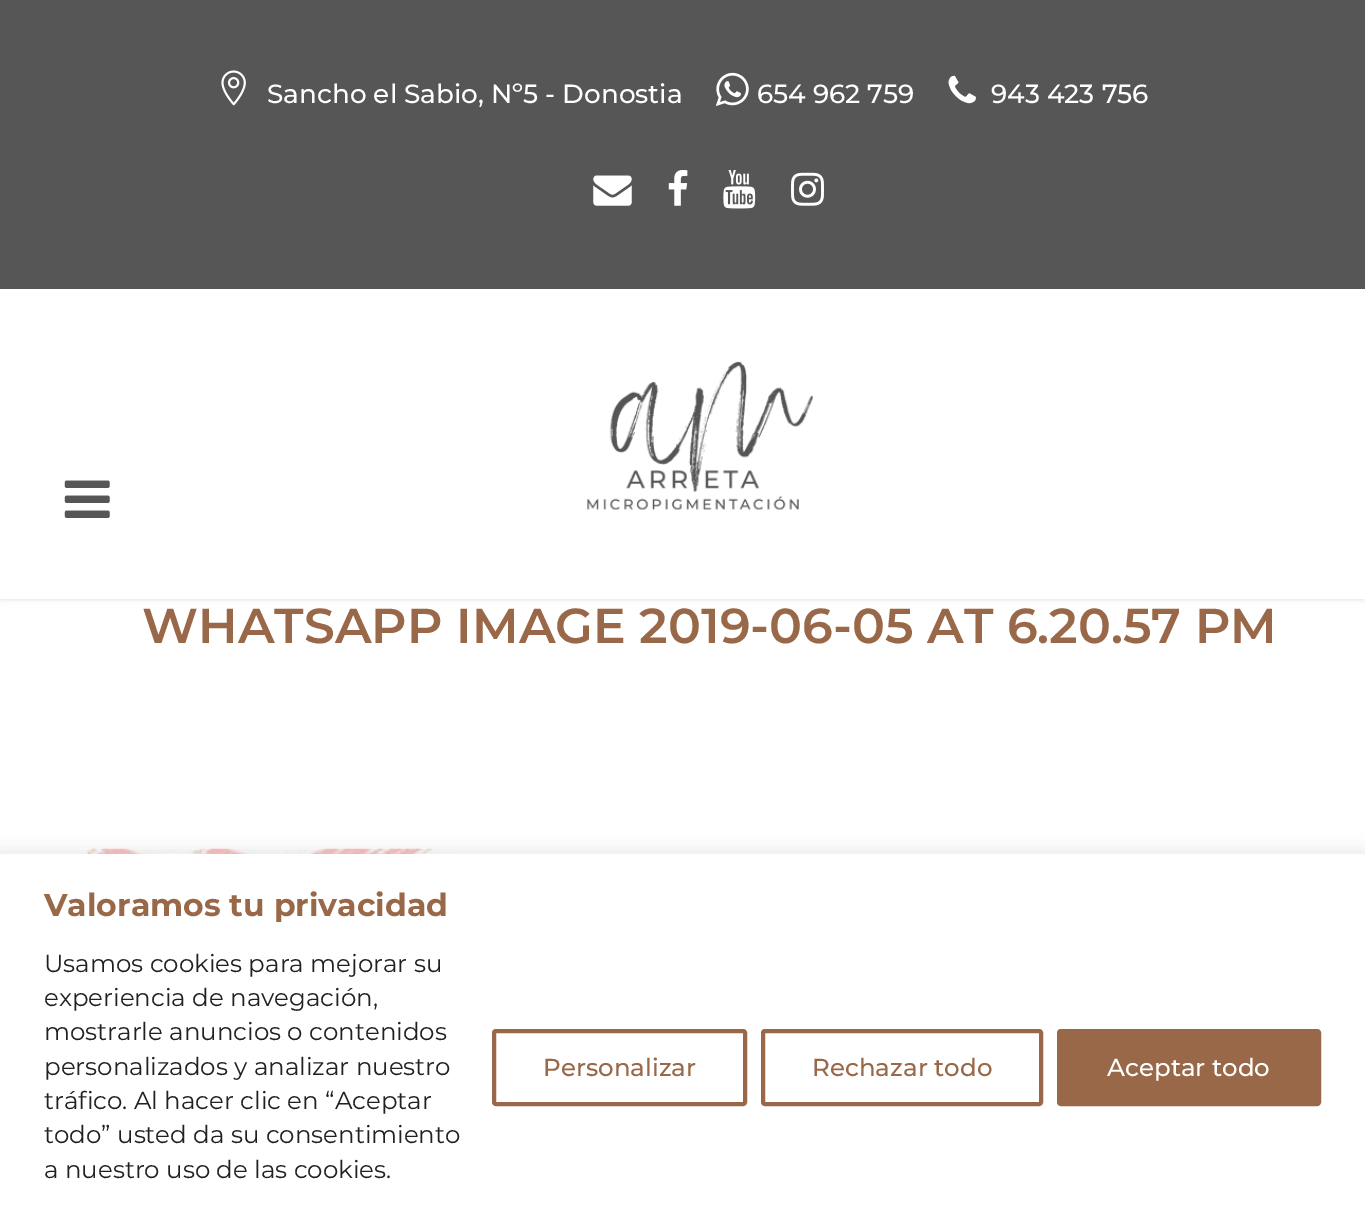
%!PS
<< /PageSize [1365 1218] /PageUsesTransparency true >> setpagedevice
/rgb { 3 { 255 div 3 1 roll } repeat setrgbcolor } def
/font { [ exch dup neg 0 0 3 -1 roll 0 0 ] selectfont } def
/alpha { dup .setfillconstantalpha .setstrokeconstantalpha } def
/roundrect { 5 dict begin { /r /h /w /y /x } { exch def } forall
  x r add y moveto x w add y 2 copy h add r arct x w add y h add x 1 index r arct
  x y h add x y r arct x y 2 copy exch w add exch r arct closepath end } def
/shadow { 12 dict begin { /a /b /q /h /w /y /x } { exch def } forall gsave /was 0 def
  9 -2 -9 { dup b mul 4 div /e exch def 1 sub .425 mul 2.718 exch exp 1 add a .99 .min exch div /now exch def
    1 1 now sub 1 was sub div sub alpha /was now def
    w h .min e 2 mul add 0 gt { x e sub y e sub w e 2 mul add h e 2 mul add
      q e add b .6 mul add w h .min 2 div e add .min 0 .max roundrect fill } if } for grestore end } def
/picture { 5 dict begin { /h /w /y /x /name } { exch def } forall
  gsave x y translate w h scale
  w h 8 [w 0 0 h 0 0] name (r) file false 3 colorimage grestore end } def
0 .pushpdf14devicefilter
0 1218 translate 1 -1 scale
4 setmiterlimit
255 255 255 rgb
0 0 1365 1218 rectfill
86 86 86 rgb
0 0 1365 289 rectfill
(img/1.rgb) 221 70 25 36 picture
(img/2.rgb) 715 72 34 34 picture
(img/3.rgb) 948 75 28 29 picture
(img/4.rgb) 593 175 39 31 picture
(img/5.rgb) 668 170 20 36 picture
(img/6.rgb) 723 170 33 39 picture
(img/7.rgb) 791 172 33 34 picture
0 0 0 rgb
0 291 1365 309 0 2 0.1 shadow
255 255 255 rgb
0 289 1365 310 rectfill
(img/8.rgb) 64 480 46 38 picture
(img/9.rgb) 587 361 226 149 picture
(img/10.rgb) 87 848 365 6 picture
172 171 171 rgb
0 852 1365 364 0 9 0.3 shadow
255 255 255 rgb
0 854 1365 364 rectfill
153 104 72 rgb
4 setlinewidth
494 1031 251 73 2 roundrect stroke
763 1031 278 73 2 roundrect stroke
1059 1031 260 73 2 roundrect gsave fill grestore
stroke
/Montserrat-Medium 26.25 font
255 255 255 rgb
[
  [(Sancho el Sabio, Nº5 - Donostia) 267 103]
  [(654 962 759) 757 103]
  [(943 423 756) 991 103]
] { aload pop moveto show } forall
/Montserrat-SemiBold 49 font
153 104 72 rgb
142 643 moveto (WHATSAPP IMAGE 2019-06-05 AT 6.20.57 PM) show
/Montserrat-Bold 31.5 font
44 916 moveto (Valoramos tu privacidad) show
/Montserrat-Regular 24.5 font
33 33 33 rgb
[
  [(Usamos cookies para mejorar su) 44 972]
  [(experiencia de navegación,) 44 1006]
  [(mostrarle anuncios o contenidos) 44 1040]
  [(personalizados y analizar nuestro) 44 1075]
  [(tráfico. Al hacer clic en “Aceptar) 44 1109]
  [(todo” usted da su consentimiento) 44 1143]
  [(a nuestro uso de las cookies.) 44 1178]
] { aload pop moveto show } forall
/Montserrat-Medium 24.5 font
153 104 72 rgb
543 1076 moveto (Personalizar) show
812 1076 moveto (Rechazar todo) show
255 255 255 rgb
1107 1076 moveto (Aceptar todo) show
.poppdf14devicefilter showpage
